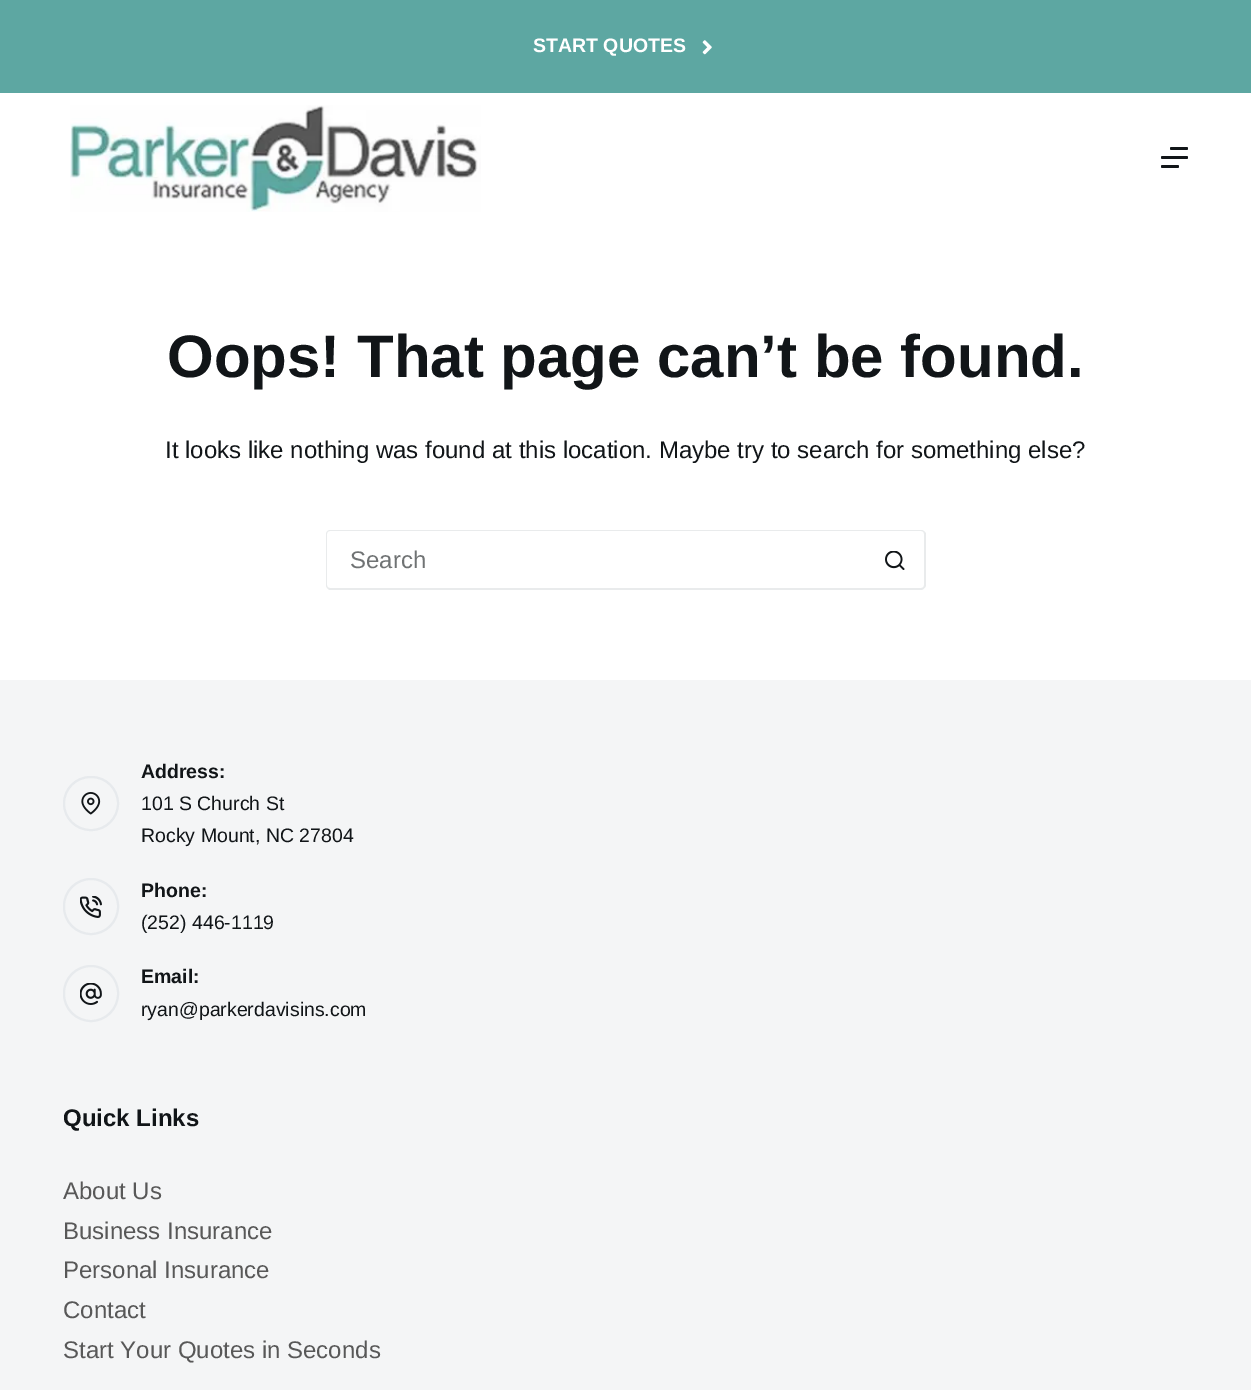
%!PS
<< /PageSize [1251 1390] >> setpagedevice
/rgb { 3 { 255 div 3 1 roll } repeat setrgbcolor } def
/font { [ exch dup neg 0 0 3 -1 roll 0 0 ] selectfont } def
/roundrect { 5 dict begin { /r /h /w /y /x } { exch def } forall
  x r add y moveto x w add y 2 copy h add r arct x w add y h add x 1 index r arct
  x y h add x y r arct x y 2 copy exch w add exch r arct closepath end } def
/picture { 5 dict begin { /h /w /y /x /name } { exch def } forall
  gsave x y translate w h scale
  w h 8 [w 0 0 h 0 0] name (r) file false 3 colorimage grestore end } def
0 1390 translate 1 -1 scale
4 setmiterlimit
255 255 255 rgb
0 0 1251 1390 rectfill
93 167 162 rgb
0 0 1251 93 rectfill
(img/1.rgb) 702 40 10 15 picture
(img/2.rgb) 70 105 411 107 picture
17 21 24 rgb
1170 147 18 3 1.5 roundrect fill
1161 156 27 3 1.5 roundrect fill
1161 165 18 3 1.5 roundrect fill
233 235 236 rgb
330 530 moveto 866 530 lineto 866 590 lineto 330 590 lineto 328 590 326 587 326 585 curveto 326 534 lineto 326 532 328 530 330 530 curveto closepath 330 531 moveto 866 531 lineto 866 588 lineto 330 588 lineto 328 588 327 587 327 585 curveto 327 534 lineto 327 532 328 531 330 531 curveto closepath eofill
866 530 moveto 921 530 lineto 923 530 926 532 926 534 curveto 926 585 lineto 926 587 923 590 921 590 curveto 866 590 lineto closepath 866 531 moveto 921 531 lineto 923 531 924 532 924 534 curveto 924 585 lineto 924 587 923 588 921 588 curveto 866 588 lineto closepath eofill
(img/3.rgb) 885 551 20 19 picture
244 245 246 rgb
0 680 1251 710 rectfill
231 234 237 rgb
2 setlinewidth
64 777 54 53 26.5 roundrect stroke
(img/4.rgb) 81 792 20 23 picture
64 879 54 55 27 roundrect stroke
(img/5.rgb) 80 896 22 22 picture
64 966 54 55 27 roundrect stroke
(img/6.rgb) 80 983 22 22 picture
/LiberationSans-Bold 19.5 font
255 255 255 rgb
533 52 moveto (START QUOTES) show
/LiberationSans-Bold 60 font
17 21 24 rgb
167 377 moveto (Oops! That page can’t be found.) show
/LiberationSans-Regular 24 font
165 458 moveto (It looks like nothing was found at this location. Maybe try to search for something else?) show
112 115 116 rgb
350 568 moveto (Search) show
/LiberationSans-Bold 19.5 font
17 21 24 rgb
141 778 moveto (Address:) show
/LiberationSans-Regular 19.5 font
141 810 moveto (101 S Church St) show
141 842 moveto (Rocky Mount, NC 27804) show
/LiberationSans-Bold 19.5 font
141 897 moveto (Phone:) show
/LiberationSans-Regular 19.5 font
141 929 moveto (\(252\) 446-1119) show
/LiberationSans-Bold 19.5 font
141 983 moveto (Email:) show
/LiberationSans-Regular 19.5 font
141 1016 moveto (ryan@parkerdavisins.com) show
/LiberationSans-Bold 24 font
63 1126 moveto (Quick Links) show
/LiberationSans-Regular 24 font
88 88 88 rgb
[
  [(About Us) 63 1199]
  [(Business Insurance) 63 1239]
  [(Personal Insurance) 63 1278]
  [(Contact) 63 1318]
  [(Start Your Quotes in Seconds) 63 1358]
] { aload pop moveto show } forall
showpage
